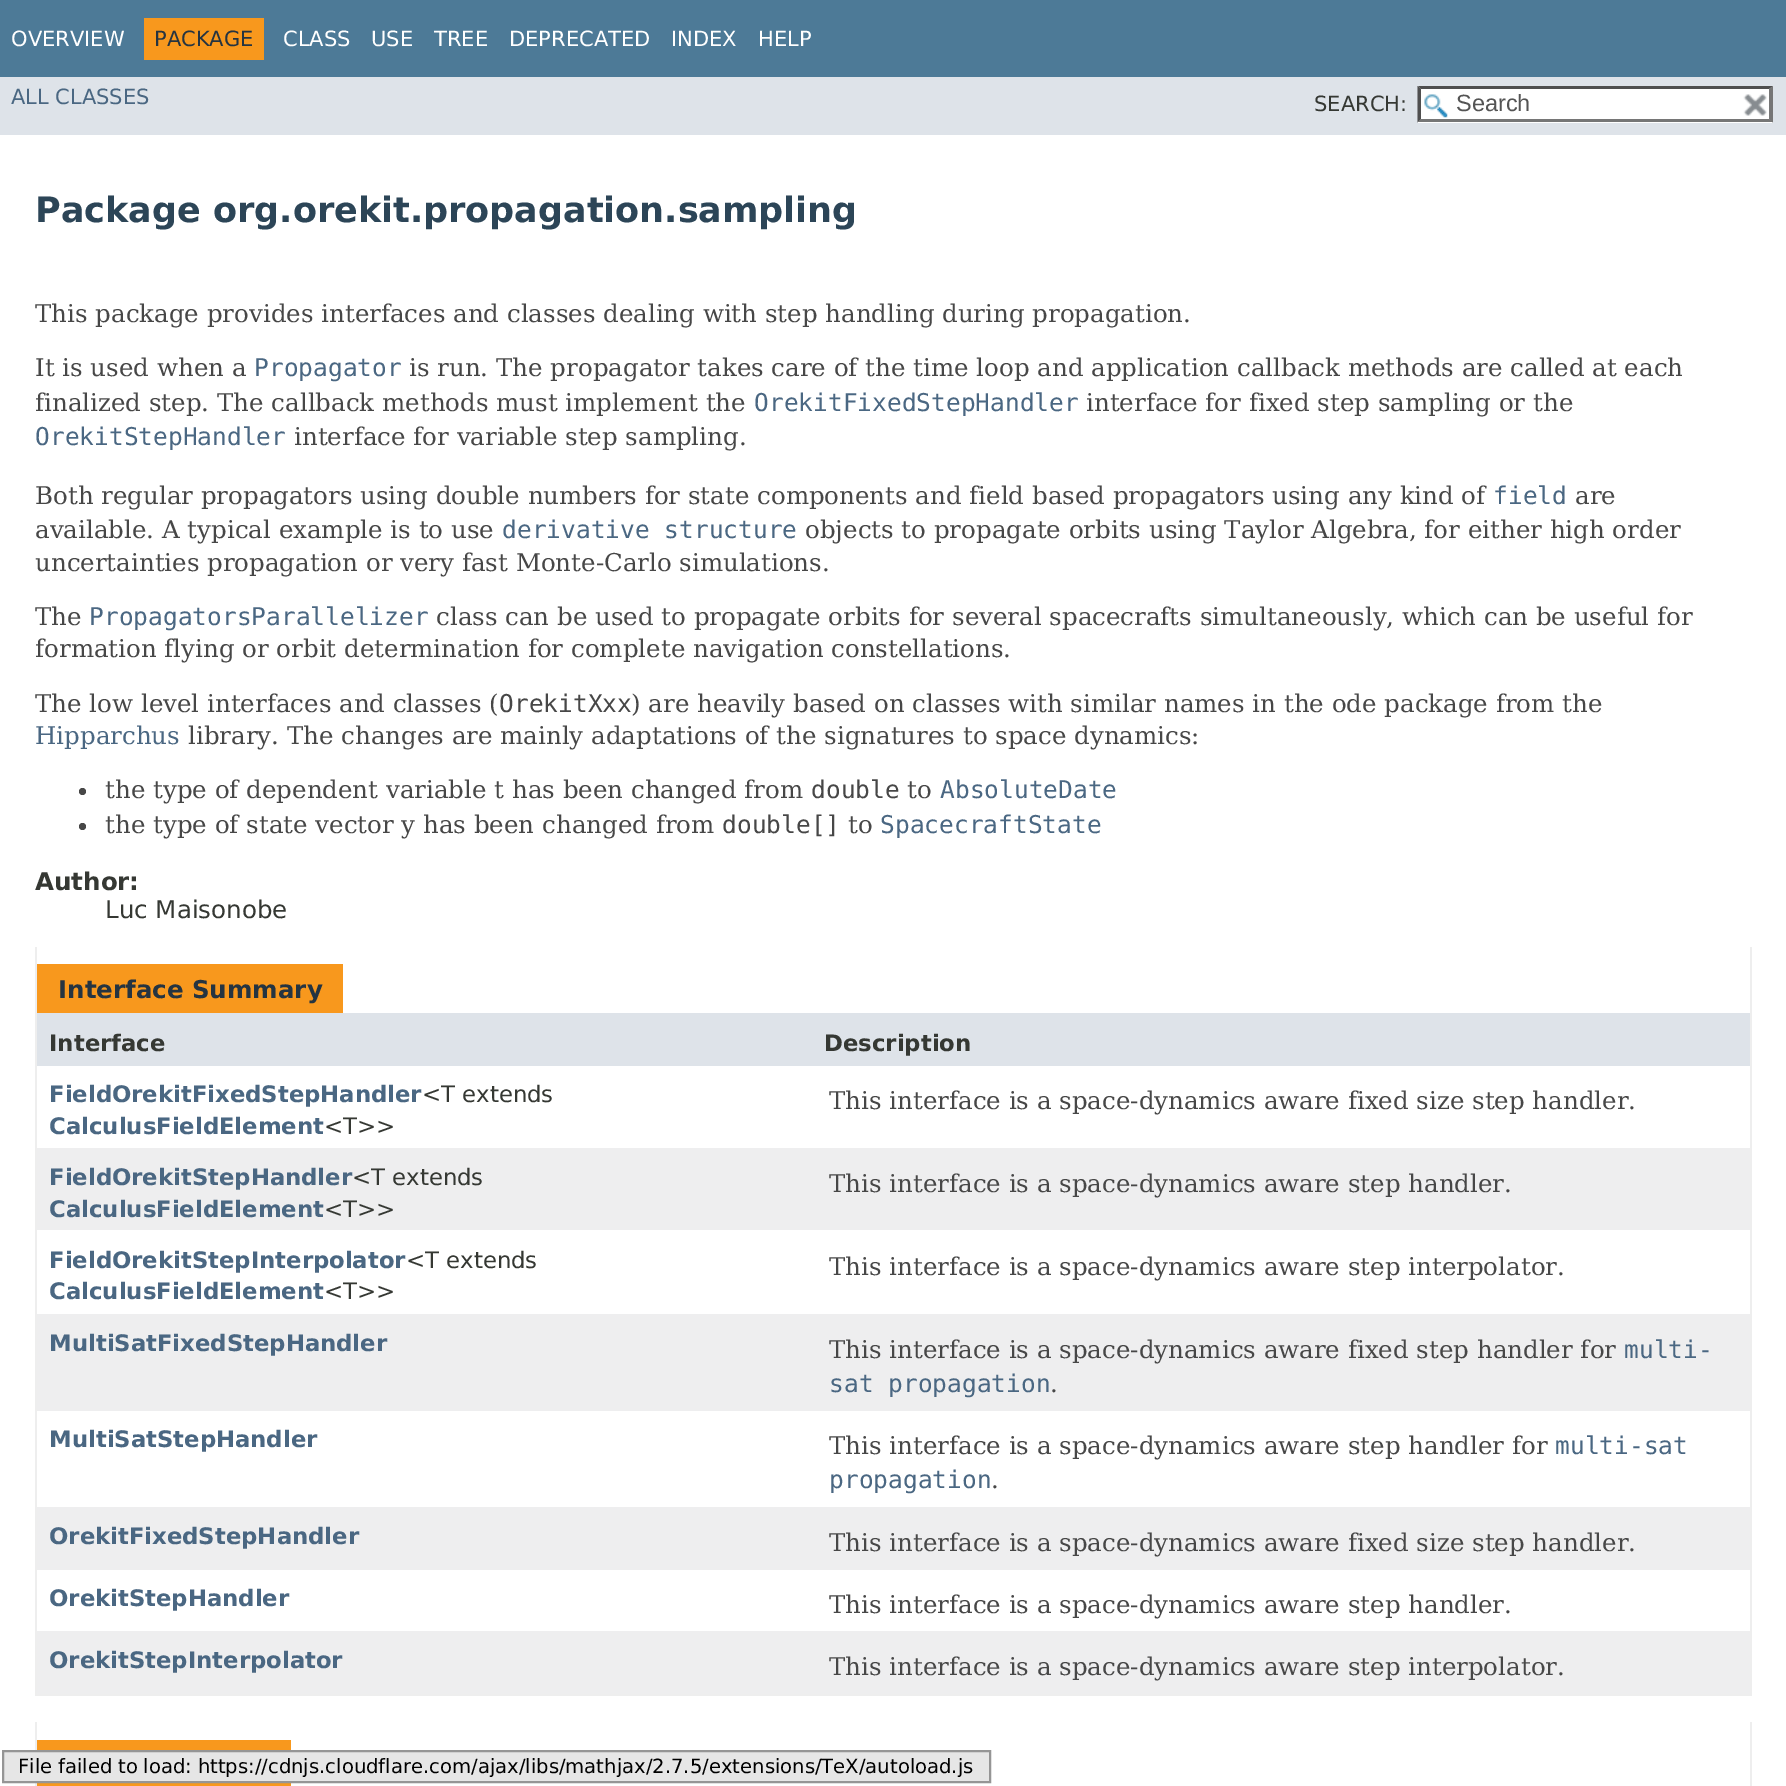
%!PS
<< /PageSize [1786 1786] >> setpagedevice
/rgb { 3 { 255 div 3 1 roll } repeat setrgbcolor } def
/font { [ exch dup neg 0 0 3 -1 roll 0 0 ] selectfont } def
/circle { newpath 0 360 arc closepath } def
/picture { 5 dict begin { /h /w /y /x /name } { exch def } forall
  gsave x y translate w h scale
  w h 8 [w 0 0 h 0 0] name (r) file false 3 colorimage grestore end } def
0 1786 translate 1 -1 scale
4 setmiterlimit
255 255 255 rgb
0 0 1786 1786 rectfill
[
  [0 0 1786 77 77 122 151]
  [144 18 120 42 248 152 29]
  [0 77 1786 58 222 227 233]
  [1418 86 355 37 255 255 255]
] { aload pop rgb rectfill } forall
(img/1.rgb) 1424 94 24 24 picture
79 79 79 rgb
1418 86 moveto 1773 86 lineto 1769 89 lineto 1421 89 lineto closepath fill
118 118 118 rgb
1773 86 moveto 1773 122.5 lineto 1769 119 lineto 1769 89 lineto closepath fill
1773 122 moveto 1418 122 lineto 1421 119 lineto 1769 119 lineto closepath fill
79 79 79 rgb
1417.5 122.5 moveto 1417.5 86 lineto 1421 89 lineto 1421 119 lineto closepath fill
(img/2.rgb) 1743 94 24 22 picture
71 71 71 rgb
82.5 791.5 3.5 circle fill
82.5 826.5 3.5 circle fill
[
  [1750 947 2 749 238 238 238]
  [35 1694 1717 2 238 238 238]
  [35 947 2 749 238 238 238]
  [37 964 306 49 248 152 29]
  [37 1013 1713 53 222 227 233]
  [37 1148 1713 82 238 238 239]
  [37 1314 1713 97 238 238 239]
  [37 1507 1713 63 238 238 239]
  [37 1631 1713 63 238 238 239]
  [1750 1722 2 64 238 238 238]
  [35 1722 2 64 238 238 238]
  [37 1740 254 46 248 152 29]
] { aload pop rgb rectfill } forall
230 230 230 rgb
3 1751 moveto 990 1751 lineto 990 1782 lineto 3 1782 lineto closepath gsave fill grestore
149 149 149 rgb
2 setlinewidth
stroke
/DejaVuSans-Regular 21 font
255 255 255 rgb
11 46 moveto (OVERVIEW) show
37 52 65 rgb
154 46 moveto (PACKAGE) show
255 255 255 rgb
[
  [(CLASS) 283 46]
  [(USE) 371 46]
  [(TREE) 434 46]
  [(DEPRECATED) 509 46]
  [(INDEX) 671 46]
  [(HELP) 758 46]
] { aload pop moveto show } forall
74 103 130 rgb
11 104 moveto (ALL CLASSES) show
53 56 51 rgb
1314 111 moveto (SEARCH:) show
/LiberationSans-Regular 23.5 font
84 84 84 rgb
1456 111 moveto (Search) show
/DejaVuSans-Bold 35 font
44 69 87 rgb
35 222 moveto (Package org.orekit.propagation.sampling) show
/DejaVuSerif-Regular 24.5 font
71 71 71 rgb
35 322 moveto (This package provides interfaces and classes dealing with step handling during propagation.) show
35 376 moveto (It is used when a) show
/DejaVuSansMono-Regular 24.5 font
74 103 130 rgb
254 376 moveto (Propagator) show
/DejaVuSerif-Regular 24.5 font
71 71 71 rgb
409 376 moveto (is run. The propagator takes care of the time loop and application callback methods are called at each) show
35 411 moveto (finalized step. The callback methods must implement the) show
/DejaVuSansMono-Regular 24.5 font
74 103 130 rgb
754 411 moveto (OrekitFixedStepHandler) show
/DejaVuSerif-Regular 24.5 font
71 71 71 rgb
1086 411 moveto (interface for fixed step sampling or the) show
/DejaVuSansMono-Regular 24.5 font
74 103 130 rgb
35 445 moveto (OrekitStepHandler) show
/DejaVuSerif-Regular 24.5 font
71 71 71 rgb
294 445 moveto (interface for variable step sampling.) show
35 504 moveto (Both regular propagators using double numbers for state components and field based propagators using any kind of) show
/DejaVuSansMono-Regular 24.5 font
74 103 130 rgb
1493 504 moveto (field) show
/DejaVuSerif-Regular 24.5 font
71 71 71 rgb
1575 504 moveto (are) show
35 538 moveto (available. A typical example is to use) show
/DejaVuSansMono-Regular 24.5 font
74 103 130 rgb
502 538 moveto (derivative structure) show
/DejaVuSerif-Regular 24.5 font
71 71 71 rgb
[
  [(objects to propagate orbits using Taylor Algebra, for either high order) 805 538]
  [(uncertainties propagation or very fast Monte-Carlo simulations.) 35 571]
  [(The) 35 625]
] { aload pop moveto show } forall
/DejaVuSansMono-Regular 24.5 font
74 103 130 rgb
89 625 moveto (PropagatorsParallelizer) show
/DejaVuSerif-Regular 24.5 font
71 71 71 rgb
[
  [(class can be used to propagate orbits for several spacecrafts simultaneously, which can be useful for) 436 625]
  [(formation flying or orbit determination for complete navigation constellations.) 35 657]
  [(The low level interfaces and classes \() 35 712]
] { aload pop moveto show } forall
/DejaVuSansMono-Regular 24.5 font
499 712 moveto (OrekitXxx) show
/DejaVuSerif-Regular 24.5 font
631 712 moveto (\) are heavily based on classes with similar names in the ode package from the) show
74 103 130 rgb
35 744 moveto (Hipparchus) show
71 71 71 rgb
188 744 moveto (library. The changes are mainly adaptations of the signatures to space dynamics:) show
105 798 moveto (the type of dependent variable t has been changed from) show
/DejaVuSansMono-Regular 24.5 font
811 798 moveto (double) show
/DejaVuSerif-Regular 24.5 font
907 798 moveto (to) show
/DejaVuSansMono-Regular 24.5 font
74 103 130 rgb
940 798 moveto (AbsoluteDate) show
/DejaVuSerif-Regular 24.5 font
71 71 71 rgb
105 833 moveto (the type of state vector y has been changed from) show
/DejaVuSansMono-Regular 24.5 font
722 833 moveto (double[]) show
/DejaVuSerif-Regular 24.5 font
848 833 moveto (to) show
/DejaVuSansMono-Regular 24.5 font
74 103 130 rgb
880 833 moveto (SpacecraftState) show
/DejaVuSans-Bold 24.5 font
53 56 51 rgb
35 890 moveto (Author:) show
/DejaVuSans-Regular 24.5 font
105 918 moveto (Luc Maisonobe) show
/DejaVuSans-Bold 24.5 font
37 52 65 rgb
58 998 moveto (Interface Summary) show
/DejaVuSans-Bold 22.75 font
53 56 51 rgb
49 1051 moveto (Interface) show
824 1051 moveto (Description) show
74 103 130 rgb
49 1102 moveto (FieldOrekitFixedStepHandler) show
/DejaVuSans-Regular 22.75 font
53 56 51 rgb
422 1102 moveto (<T extends) show
/DejaVuSans-Bold 22.75 font
74 103 130 rgb
49 1134 moveto (CalculusFieldElement) show
/DejaVuSans-Regular 22.75 font
53 56 51 rgb
324 1134 moveto (<T>>) show
/DejaVuSerif-Regular 24.5 font
71 71 71 rgb
829 1109 moveto (This interface is a space-dynamics aware fixed size step handler.) show
/DejaVuSans-Bold 22.75 font
74 103 130 rgb
49 1185 moveto (FieldOrekitStepHandler) show
/DejaVuSans-Regular 22.75 font
53 56 51 rgb
352 1185 moveto (<T extends) show
/DejaVuSans-Bold 22.75 font
74 103 130 rgb
49 1217 moveto (CalculusFieldElement) show
/DejaVuSans-Regular 22.75 font
53 56 51 rgb
324 1217 moveto (<T>>) show
/DejaVuSerif-Regular 24.5 font
71 71 71 rgb
829 1192 moveto (This interface is a space-dynamics aware step handler.) show
/DejaVuSans-Bold 22.75 font
74 103 130 rgb
49 1268 moveto (FieldOrekitStepInterpolator) show
/DejaVuSans-Regular 22.75 font
53 56 51 rgb
406 1268 moveto (<T extends) show
/DejaVuSans-Bold 22.75 font
74 103 130 rgb
49 1299 moveto (CalculusFieldElement) show
/DejaVuSans-Regular 22.75 font
53 56 51 rgb
324 1299 moveto (<T>>) show
/DejaVuSerif-Regular 24.5 font
71 71 71 rgb
829 1275 moveto (This interface is a space-dynamics aware step interpolator.) show
/DejaVuSans-Bold 22.75 font
74 103 130 rgb
49 1351 moveto (MultiSatFixedStepHandler) show
/DejaVuSerif-Regular 24.5 font
71 71 71 rgb
829 1358 moveto (This interface is a space-dynamics aware fixed step handler for) show
/DejaVuSansMono-Regular 24.5 font
74 103 130 rgb
1624 1358 moveto (multi-) show
829 1392 moveto (sat propagation) show
/DejaVuSerif-Regular 24.5 font
71 71 71 rgb
1050 1392 moveto (.) show
/DejaVuSans-Bold 22.75 font
74 103 130 rgb
49 1447 moveto (MultiSatStepHandler) show
/DejaVuSerif-Regular 24.5 font
71 71 71 rgb
829 1454 moveto (This interface is a space-dynamics aware step handler for) show
/DejaVuSansMono-Regular 24.5 font
74 103 130 rgb
1555 1454 moveto (multi-sat) show
829 1488 moveto (propagation) show
/DejaVuSerif-Regular 24.5 font
71 71 71 rgb
991 1488 moveto (.) show
/DejaVuSans-Bold 22.75 font
74 103 130 rgb
49 1544 moveto (OrekitFixedStepHandler) show
/DejaVuSerif-Regular 24.5 font
71 71 71 rgb
829 1551 moveto (This interface is a space-dynamics aware fixed size step handler.) show
/DejaVuSans-Bold 22.75 font
74 103 130 rgb
49 1606 moveto (OrekitStepHandler) show
/DejaVuSerif-Regular 24.5 font
71 71 71 rgb
829 1613 moveto (This interface is a space-dynamics aware step handler.) show
/DejaVuSans-Bold 22.75 font
74 103 130 rgb
49 1668 moveto (OrekitStepInterpolator) show
/DejaVuSerif-Regular 24.5 font
71 71 71 rgb
829 1675 moveto (This interface is a space-dynamics aware step interpolator.) show
/DejaVuSans-Regular 19.6 font
0 0 0 rgb
18 1773 moveto -0.5 0 32 (File failed to load: https://cdnjs.cloudflare.com/ajax/libs/mathjax/2.7.5/extensions/TeX/autoload.js) widthshow
showpage
